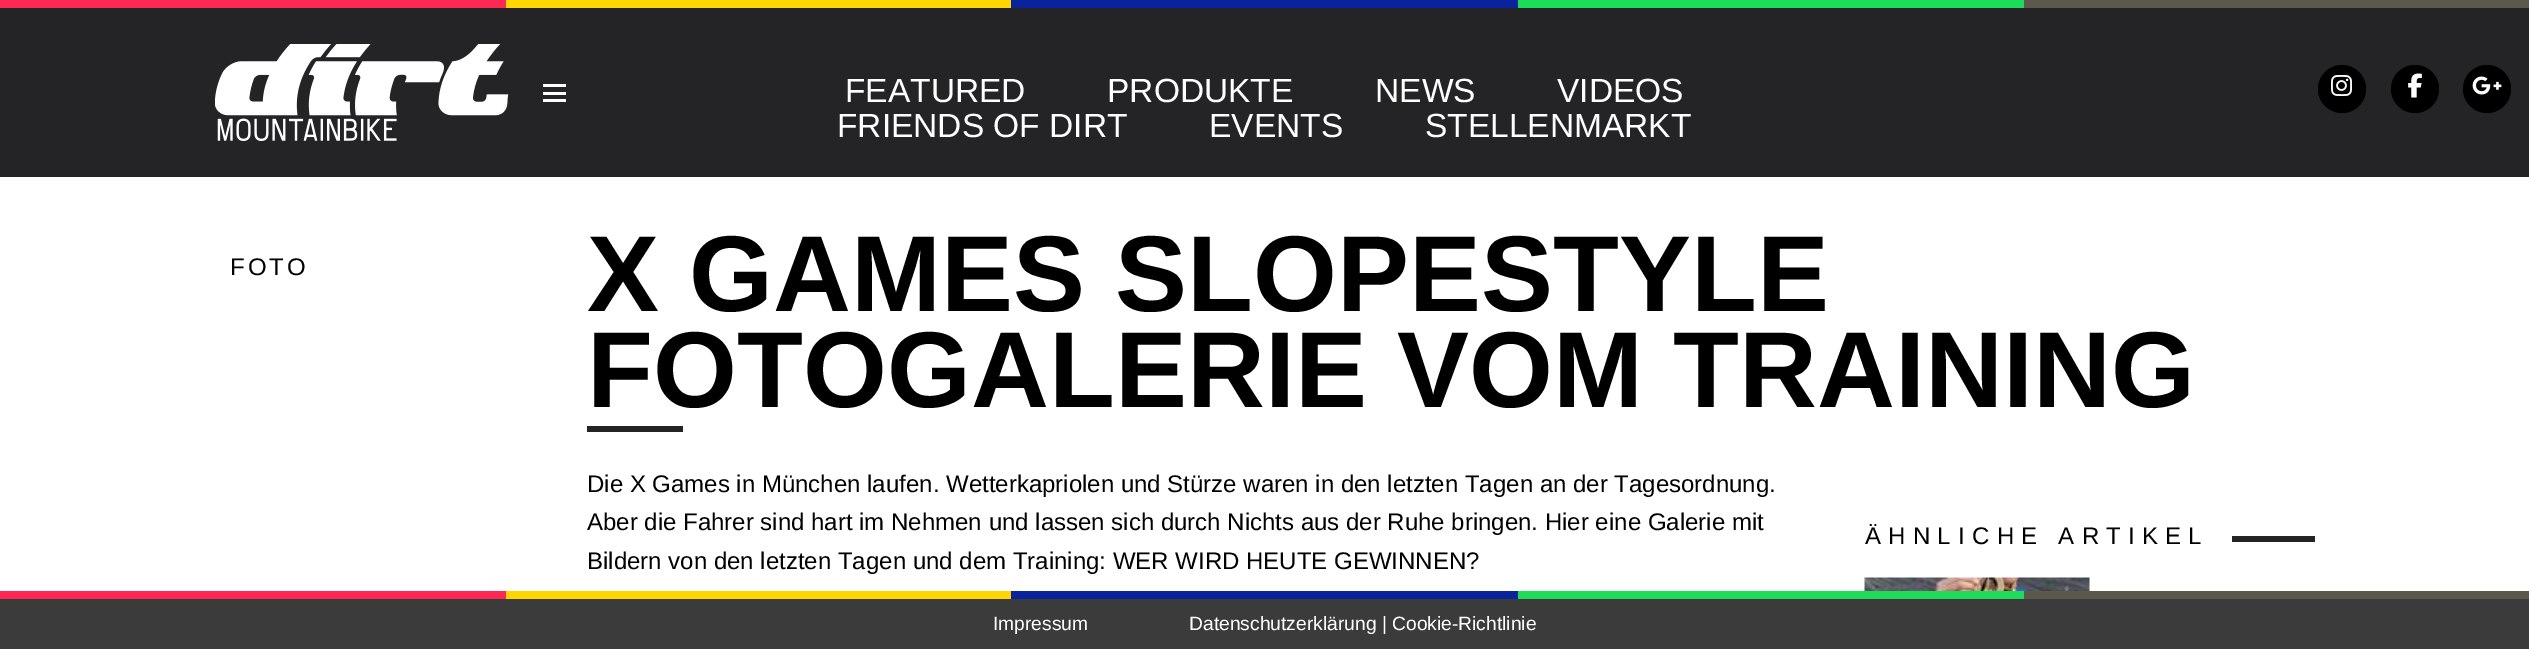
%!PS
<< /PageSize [2529 649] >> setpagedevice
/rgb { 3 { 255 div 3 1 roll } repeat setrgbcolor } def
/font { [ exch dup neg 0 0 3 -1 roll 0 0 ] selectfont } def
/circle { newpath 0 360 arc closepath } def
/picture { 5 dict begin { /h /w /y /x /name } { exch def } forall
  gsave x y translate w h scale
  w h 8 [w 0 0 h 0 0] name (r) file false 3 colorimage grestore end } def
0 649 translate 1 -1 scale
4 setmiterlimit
255 255 255 rgb
0 0 2529 649 rectfill
[
  [0 8 2529 169 36 36 38]
  [0 0 506 8 255 40 83]
  [506 0 505 8 255 213 2]
  [1011 0 507 8 8 35 155]
  [1518 0 506 8 28 220 89]
  [2024 0 505 8 92 88 76]
] { aload pop rgb rectfill } forall
(img/1.rgb) 215 44 294 97 picture
[
  [543 92 23 3 255 255 255]
  [543 84 23 3 255 255 255]
  [543 99 23 3 255 255 255]
] { aload pop rgb rectfill } forall
0 0 0 rgb
2342 89 24 circle fill
(img/2.rgb) 2331 75 21 21 picture
2415 89 24 circle fill
(img/3.rgb) 2408 73 14 25 picture
2487 89 24 circle fill
(img/4.rgb) 2472 76 30 19 picture
36 36 38 rgb
587 426 96 6 rectfill
2232 536 83 6 rectfill
(img/5.rgb) 1864 577 226 14 picture
[
  [0 591 506 8 255 40 83]
  [506 591 505 8 255 213 2]
  [1011 591 507 8 8 35 155]
  [1518 591 506 8 28 220 89]
  [2024 591 505 8 92 88 76]
  [0 599 2529 50 59 59 59]
] { aload pop rgb rectfill } forall
/LiberationSans-Regular 33.5 font
255 255 255 rgb
[
  [(FEATURED) 845 102]
  [(PRODUKTE) 1107 102]
  [(NEWS) 1375 102]
  [(VIDEOS) 1557 102]
  [(FRIENDS OF DIRT) 837 137]
  [(EVENTS) 1209 137]
  [(STELLENMARKT) 1425 137]
] { aload pop moveto show } forall
/LiberationSans-Regular 24 font
0 0 0 rgb
230 275 moveto 3 0 (FOTO) ashow
/LiberationSans-Bold 108 font
587 311 moveto (X GAMES SLOPESTYLE) show
587 407 moveto (FOTOGALERIE VOM TRAINING) show
/LiberationSans-Regular 24 font
[
  [(Die X Games in München laufen. Wetterkapriolen und Stürze waren in den letzten Tagen an der Tagesordnung.) 587 492]
  [(Aber die Fahrer sind hart im Nehmen und lassen sich durch Nichts aus der Ruhe bringen. Hier eine Galerie mit) 587 530]
  [(Bildern von den letzten Tagen und dem Training: WER WIRD HEUTE GEWINNEN?) 587 569]
] { aload pop moveto show } forall
1865 544 moveto 7.25 0 (ÄHNLICHE ARTIKEL) ashow
/LiberationSans-Regular 19.25 font
255 255 255 rgb
993 630 moveto (Impressum) show
1189 630 moveto (Datenschutzerklärung | Cookie-Richtlinie) show
showpage
